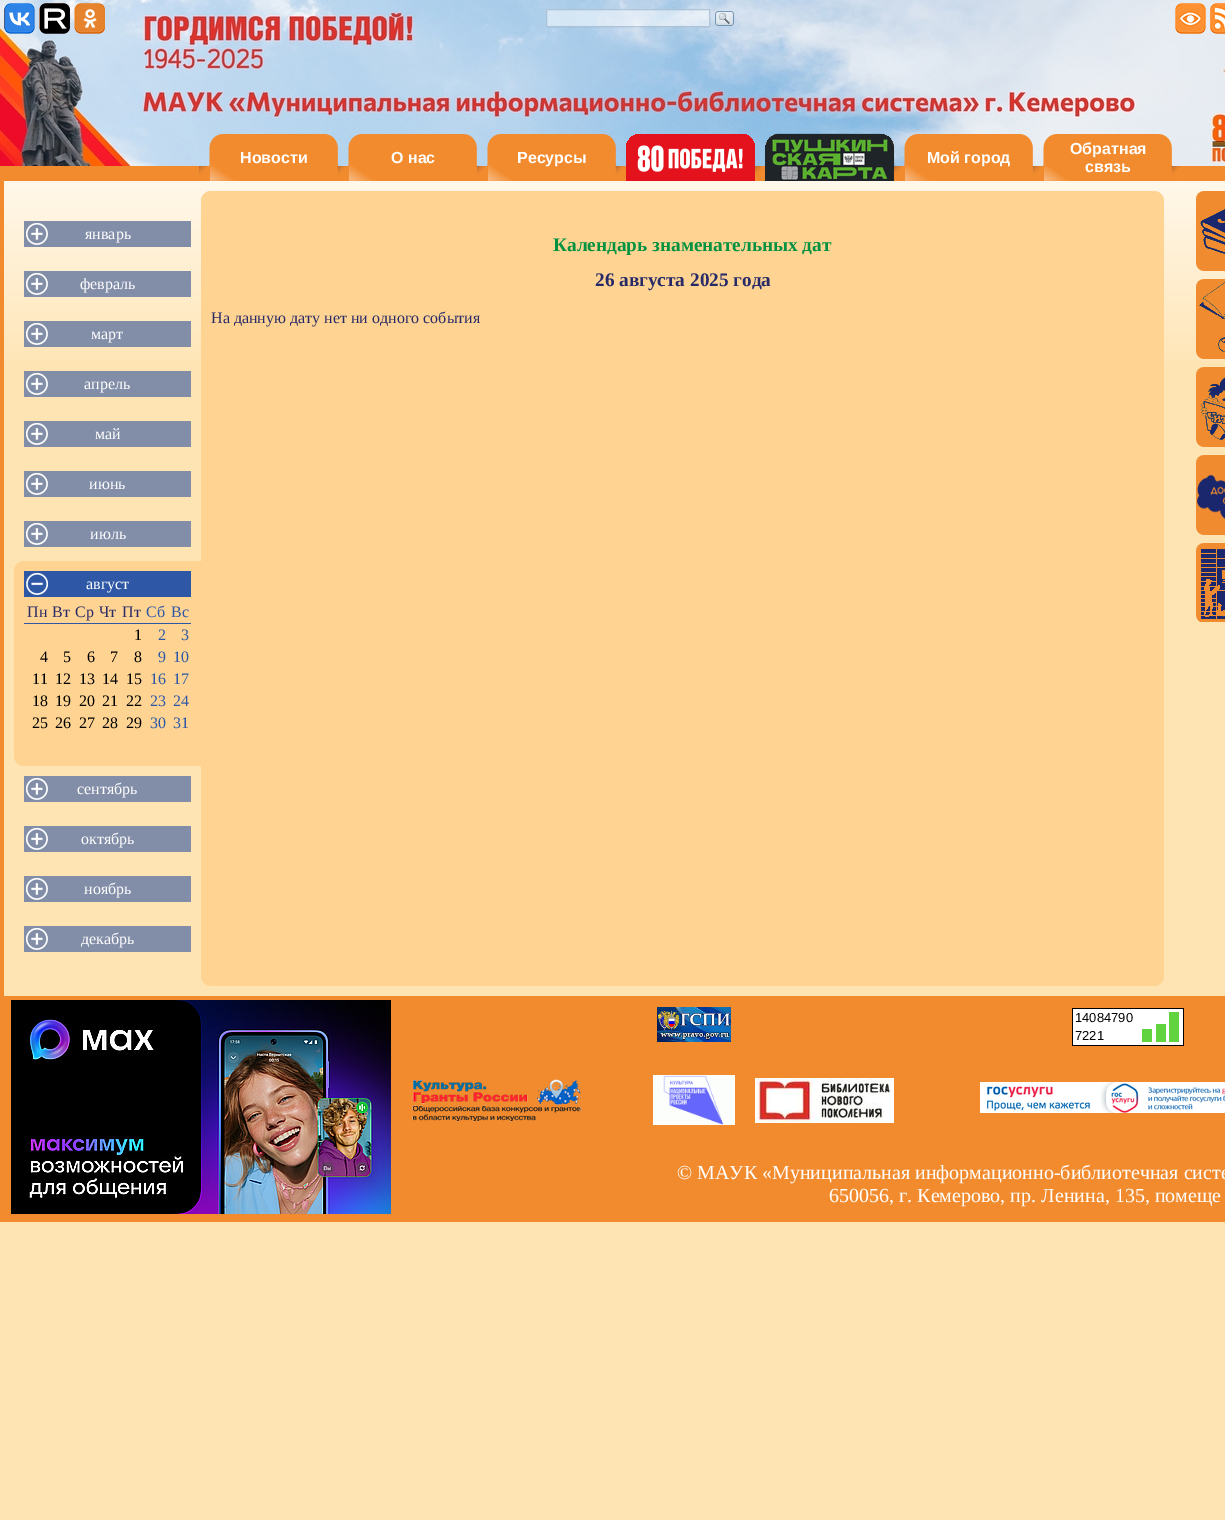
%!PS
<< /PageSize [1225 1520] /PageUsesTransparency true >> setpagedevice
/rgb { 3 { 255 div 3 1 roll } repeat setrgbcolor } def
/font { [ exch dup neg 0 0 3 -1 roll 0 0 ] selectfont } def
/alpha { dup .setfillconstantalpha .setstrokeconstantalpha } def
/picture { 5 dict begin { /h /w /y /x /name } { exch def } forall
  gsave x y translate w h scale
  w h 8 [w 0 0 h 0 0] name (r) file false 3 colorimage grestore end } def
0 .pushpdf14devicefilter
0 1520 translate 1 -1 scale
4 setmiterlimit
255 228 179 rgb
0 0 1225 1520 rectfill
(img/1.rgb) 0 0 1225 166 picture
(img/2.rgb) 4 3 31 31 picture
(img/3.rgb) 39 3 31 31 picture
(img/4.rgb) 74 3 31 31 picture
0.5 alpha
255 255 255 rgb
546 9 164 18 rectfill
127 157 185 rgb
546.5 9.5 163 17 rectstroke
1 alpha
(img/5.rgb) 715 11 19 15 picture
(img/6.rgb) 1175 3 31 31 picture
(img/7.rgb) 1210 3 15 31 picture
242 139 46 rgb
0 166 1225 15 rectfill
(img/8.rgb) 199 134 149 47 picture
(img/9.rgb) 348 134 139 47 picture
(img/10.rgb) 487 134 139 47 picture
(img/11.rgb) 626 134 139 47 picture
(img/12.rgb) 765 133 130 48 picture
(img/13.rgb) 894 134 149 47 picture
(img/14.rgb) 1043 134 140 47 picture
(img/15.rgb) 4 181 1221 180 picture
0 181 4 815 rectfill
255 212 147 rgb
211 191 moveto 1154 191 lineto 1159.5 191 1164 195.5 1164 201 curveto 1164 211 lineto 201 211 lineto 201 201 lineto 201 195.5 205.5 191 211 191 curveto closepath fill
130 142 167 rgb
24 221 167 26 rectfill
(img/16.rgb) 26 223 22 22 picture
24 271 167 26 rectfill
(img/16.rgb) 26 273 22 22 picture
24 321 167 26 rectfill
(img/16.rgb) 26 323 22 22 picture
24 371 167 26 rectfill
(img/16.rgb) 26 373 22 22 picture
24 421 167 26 rectfill
(img/16.rgb) 26 423 22 22 picture
24 471 167 26 rectfill
(img/16.rgb) 26 473 22 22 picture
24 521 167 26 rectfill
(img/16.rgb) 26 523 22 22 picture
255 212 147 rgb
24 561 moveto 201 561 lineto 201 766 lineto 24 766 lineto 18.5 766 14 761.5 14 756 curveto 14 571 lineto 14 565.5 18.5 561 24 561 curveto closepath fill
46 88 166 rgb
24 571 167 26 rectfill
(img/17.rgb) 26 573 22 22 picture
24 623 167 1 rectfill
130 142 167 rgb
24 776 167 26 rectfill
(img/16.rgb) 26 778 22 22 picture
24 826 167 26 rectfill
(img/16.rgb) 26 828 22 22 picture
24 876 167 26 rectfill
(img/16.rgb) 26 878 22 22 picture
24 926 167 26 rectfill
(img/16.rgb) 26 928 22 22 picture
255 212 147 rgb
201 211 963 755 rectfill
201 966 moveto 1164 966 lineto 1164 976 lineto 1164 981.5 1159.5 986 1154 986 curveto 211 986 lineto 205.5 986 201 981.5 201 976 curveto closepath fill
(img/18.rgb) 1196 191 29 80 picture
(img/19.rgb) 1196 279 29 80 picture
(img/20.rgb) 1196 367 29 80 picture
(img/21.rgb) 1196 455 29 80 picture
(img/22.rgb) 1196 543 29 79 picture
242 139 46 rgb
0 996 1225 226 rectfill
(img/23.rgb) 11 1000 380 214 picture
(img/24.rgb) 657 1007 74 35 picture
[
  [1072 1008 112 38 0 0 0]
  [1073 1009 110 36 255 255 255]
  [1142 1029 10 13 96 211 63]
  [1156 1024 10 18 96 211 63]
  [1169 1012 10 30 96 211 63]
] { aload pop rgb rectfill } forall
(img/25.rgb) 412 1079 170 43 picture
(img/26.rgb) 653 1075 82 50 picture
(img/27.rgb) 755 1078 139 45 picture
(img/28.rgb) 980 1082 245 31 picture
/LiberationSans-Bold 16 font
255 255 255 rgb
[
  [(Новости) 240 163]
  [(О нас) 391 163]
  [(Ресурсы) 517 163]
  [(Мой город) 927 163]
  [(Обратная) 1070 154]
  [(связь) 1085 172]
] { aload pop moveto show } forall
/LiberationSerif-Regular 16 font
[
  [(январь) 85 239]
  [(февраль) 80 289]
  [(март) 91 339]
  [(апрель) 84 389]
  [(май) 95 439]
  [(июнь) 89 489]
  [(июль) 90 539]
  [(август) 86 589]
] { aload pop moveto show } forall
39 42 102 rgb
[
  [(Пн) 27 617]
  [(Вт) 52 617]
  [(Ср) 75 617]
  [(Чт) 99 617]
  [(Пт) 122 617]
] { aload pop moveto show } forall
46 88 166 rgb
146 617 moveto (Сб) show
171 617 moveto (Вс) show
0 0 0 rgb
134 640 moveto (1) show
46 88 166 rgb
158 640 moveto (2) show
181 640 moveto (3) show
0 0 0 rgb
[
  [(4) 40 662]
  [(5) 63 662]
  [(6) 87 662]
  [(7) 110 662]
  [(8) 134 662]
] { aload pop moveto show } forall
46 88 166 rgb
158 662 moveto (9) show
173 662 moveto (10) show
0 0 0 rgb
[
  [(11) 32 684]
  [(12) 55 684]
  [(13) 79 684]
  [(14) 102 684]
  [(15) 126 684]
] { aload pop moveto show } forall
46 88 166 rgb
150 684 moveto (16) show
173 684 moveto (17) show
0 0 0 rgb
[
  [(18) 32 706]
  [(19) 55 706]
  [(20) 79 706]
  [(21) 102 706]
  [(22) 126 706]
] { aload pop moveto show } forall
46 88 166 rgb
150 706 moveto (23) show
173 706 moveto (24) show
0 0 0 rgb
[
  [(25) 32 728]
  [(26) 55 728]
  [(27) 79 728]
  [(28) 102 728]
  [(29) 126 728]
] { aload pop moveto show } forall
46 88 166 rgb
150 728 moveto (30) show
173 728 moveto (31) show
255 255 255 rgb
[
  [(сентябрь) 77 794]
  [(октябрь) 81 844]
  [(ноябрь) 84 894]
  [(декабрь) 81 944]
] { aload pop moveto show } forall
/LiberationSerif-Bold 19.25 font
0 146 64 rgb
553 251 moveto (Календарь знаменательных дат) show
39 42 102 rgb
595 286 moveto (26 августа 2025 года) show
/LiberationSerif-Regular 16 font
211 323 moveto (На данную дату нет ни одного события) show
/LiberationSans-Regular 13 font
0 0 0 rgb
1075 1022 moveto (14084790) show
1075 1040 moveto (7221) show
/LiberationSerif-Regular 20 font
255 255 255 rgb
677 1179 moveto (© МАУК «Муниципальная информационно-библиотечная систе) show
829 1202 moveto (650056, г. Кемерово, пр. Ленина, 135, помеще) show
.poppdf14devicefilter showpage
